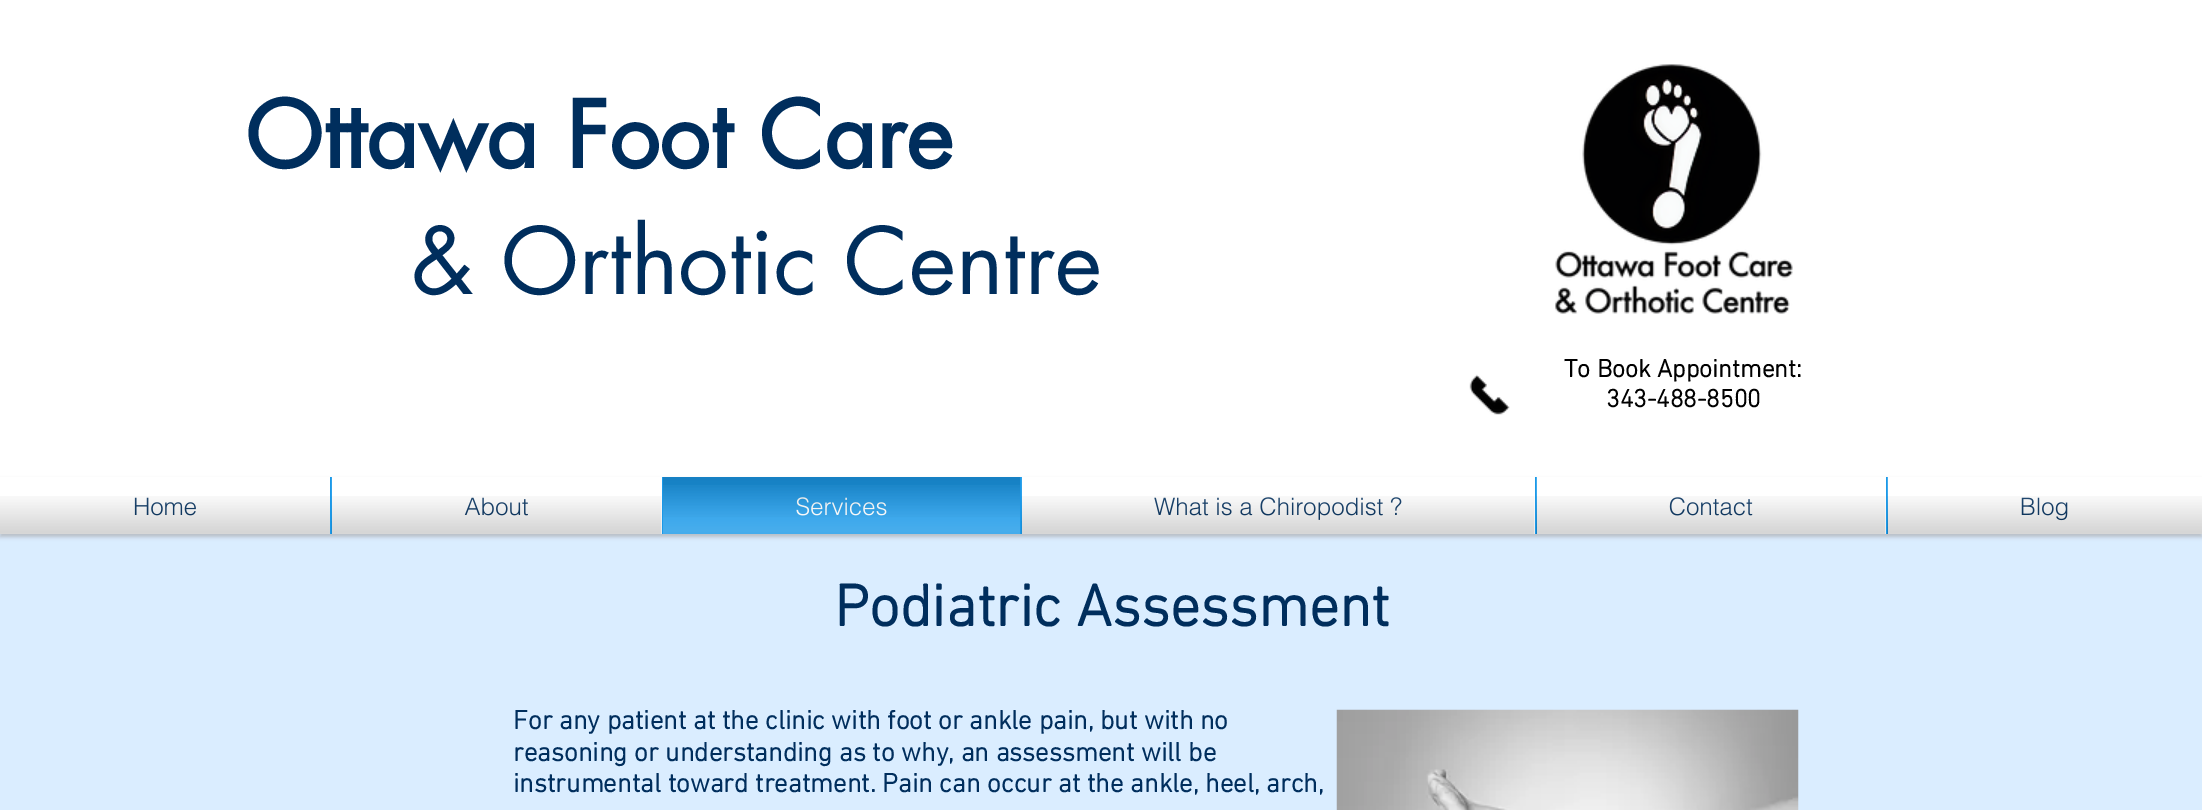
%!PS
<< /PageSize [2202 810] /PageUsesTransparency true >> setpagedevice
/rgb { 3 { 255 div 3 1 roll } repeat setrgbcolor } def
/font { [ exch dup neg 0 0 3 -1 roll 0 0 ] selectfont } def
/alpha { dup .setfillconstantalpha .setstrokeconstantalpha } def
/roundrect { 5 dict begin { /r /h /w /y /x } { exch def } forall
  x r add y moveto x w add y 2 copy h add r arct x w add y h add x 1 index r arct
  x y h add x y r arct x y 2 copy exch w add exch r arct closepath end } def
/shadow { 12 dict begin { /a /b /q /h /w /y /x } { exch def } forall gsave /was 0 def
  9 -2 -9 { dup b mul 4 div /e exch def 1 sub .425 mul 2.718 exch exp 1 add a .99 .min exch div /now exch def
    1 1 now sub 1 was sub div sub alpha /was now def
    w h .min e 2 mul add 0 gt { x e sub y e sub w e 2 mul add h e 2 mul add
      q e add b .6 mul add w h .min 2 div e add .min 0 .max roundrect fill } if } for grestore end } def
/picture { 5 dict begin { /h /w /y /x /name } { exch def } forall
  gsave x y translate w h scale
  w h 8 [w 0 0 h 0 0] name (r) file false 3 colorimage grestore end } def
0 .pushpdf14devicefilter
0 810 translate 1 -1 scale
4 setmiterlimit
218 237 255 rgb
0 0 2202 810 rectfill
255 255 255 rgb
0 0 2202 477 rectfill
(img/1.rgb) 1555 64 238 250 picture
(img/2.rgb) 1469 374 41 41 picture
162 158 158 rgb
0 480 2202 57 0 2 0.6 shadow
[
  [0 477 330 57 255 255 255]
  [332 477 330 57 255 255 255]
  [330 477 2 57 27 153 232]
  [662 477 360 57 27 153 232]
  [1022 477 513 57 255 255 255]
  [1537 477 349 57 255 255 255]
  [1535 477 2 57 27 153 232]
  [1888 477 314 57 255 255 255]
  [1886 477 2 57 27 153 232]
] { aload pop rgb rectfill } forall
(img/15.rgb) 1336 709 463 101 picture
/futura-Bold 90 font
0 46 93 rgb
245 168 moveto (Ottawa Foot Care) show
/futura-Regular 90 font
411 294 moveto (& Orthotic Centre) show
/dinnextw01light-Bold 25.5 font
0 0 0 rgb
1564 377 moveto (To Book Appointment:) show
1606 407 moveto (343-488-8500) show
/helvetica-Bold 24 font
0 46 93 rgb
133 515 moveto (Home) show
(img/3.rgb) 135 497 61 19 picture
(img/4.rgb) 0 496 330 38 picture
464 515 moveto (About) show
(img/5.rgb) 331 477 197 44 picture
(img/6.rgb) 331 496 331 38 picture
255 255 255 rgb
795 515 moveto (Services) show
(img/7.rgb) 663 477 357 38 picture
(img/8.rgb) 663 485 357 49 picture
0 46 93 rgb
1154 515 moveto (What is a Chiropodist ?) show
(img/9.rgb) 1021 477 381 44 picture
(img/10.rgb) 1021 496 514 38 picture
1669 515 moveto (Contact) show
(img/11.rgb) 1536 477 216 49 picture
(img/12.rgb) 1536 496 350 38 picture
2020 515 moveto (Blog) show
(img/13.rgb) 1887 477 181 49 picture
(img/14.rgb) 1887 496 315 38 picture
/dinnextw01light-Bold 60 font
834 626 moveto (Podiatric Assessment) show
/dinnextw01light-Bold 27 font
[
  [(For any patient at the clinic with foot or ankle pain, but with no) 513 729]
  [(reasoning or understanding as to why, an assessment will be) 513 761]
  [(instrumental toward treatment. Pain can occur at the ankle, heel, arch,) 513 792]
] { aload pop moveto show } forall
.poppdf14devicefilter showpage
